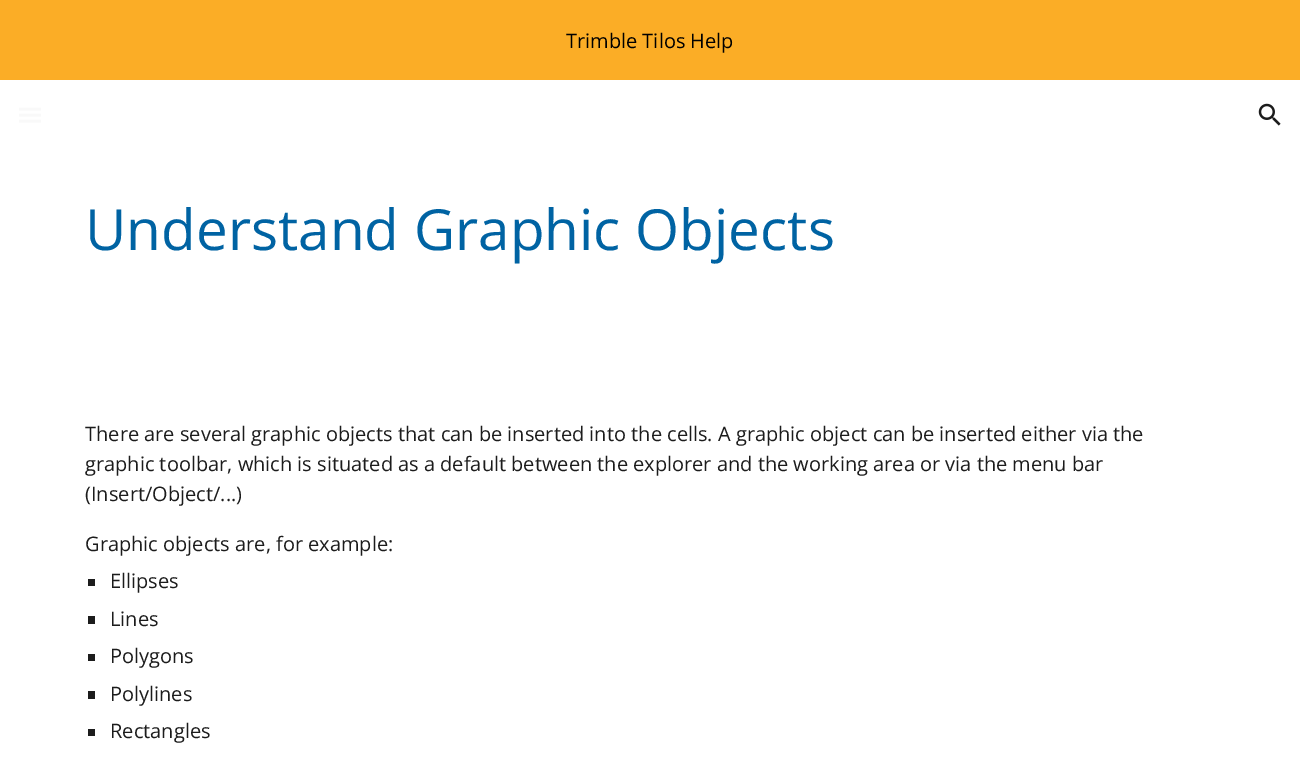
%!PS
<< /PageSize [1300 759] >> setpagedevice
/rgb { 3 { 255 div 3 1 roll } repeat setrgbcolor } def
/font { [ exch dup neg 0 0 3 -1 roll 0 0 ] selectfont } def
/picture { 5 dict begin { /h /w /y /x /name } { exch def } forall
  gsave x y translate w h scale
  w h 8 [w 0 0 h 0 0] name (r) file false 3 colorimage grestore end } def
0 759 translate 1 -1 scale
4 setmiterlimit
255 255 255 rgb
0 0 1300 759 rectfill
251 173 38 rgb
0 0 1300 80 rectfill
249 249 249 rgb
2.5 setlinewidth
19 109 moveto 41 109 lineto 19 115 moveto 41 115 lineto 19 121 moveto 41 121 lineto stroke
(img/1.rgb) 1258 103 23 23 picture
[
  [88 579 7 7 28 28 28]
  [88 616 7 8 28 28 28]
  [88 654 7 7 28 28 28]
  [88 691 7 8 28 28 28]
  [88 729 7 7 28 28 28]
] { aload pop rgb rectfill } forall
/OpenSans-Regular 20 font
0 0 0 rgb
566 48 moveto (Trimble Tilos Help) show
/OpenSans-Regular 56.7 font
0 99 163 rgb
85 250 moveto (Understand Graphic Objects) show
/OpenSans-Regular 20 font
28 28 28 rgb
[
  [(There are several graphic objects that can be inserted into the cells. A graphic object can be inserted either via the) 85 441]
  [(graphic toolbar, which is situated as a default between the explorer and the working area or via the menu bar) 85 471]
  [(\(Insert/Object/...\)) 85 501]
  [(Graphic objects are, for example:) 85 551]
  [(Ellipses) 110 588]
  [(Lines) 110 626]
  [(Polygons) 110 663]
  [(Polylines) 110 701]
  [(Rectangles) 110 738]
] { aload pop moveto show } forall
showpage
